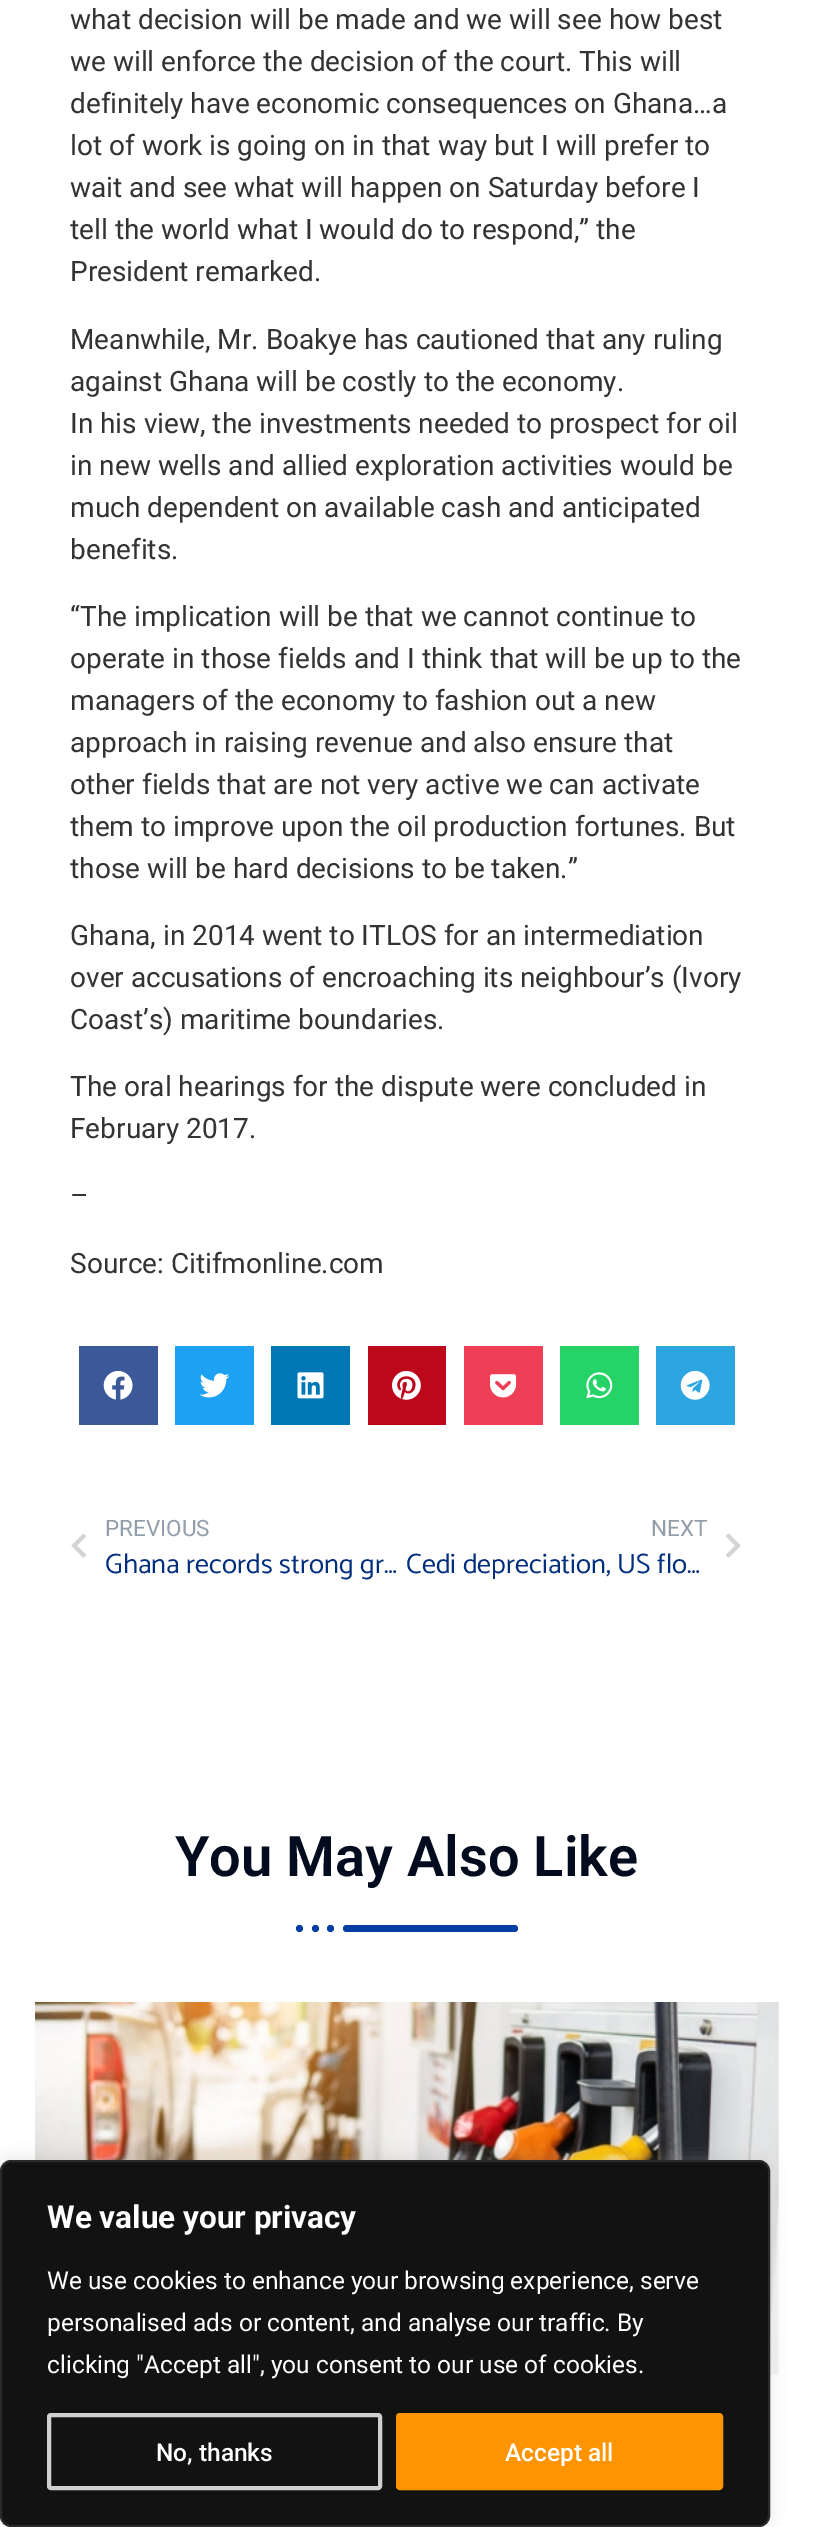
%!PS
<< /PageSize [813 2527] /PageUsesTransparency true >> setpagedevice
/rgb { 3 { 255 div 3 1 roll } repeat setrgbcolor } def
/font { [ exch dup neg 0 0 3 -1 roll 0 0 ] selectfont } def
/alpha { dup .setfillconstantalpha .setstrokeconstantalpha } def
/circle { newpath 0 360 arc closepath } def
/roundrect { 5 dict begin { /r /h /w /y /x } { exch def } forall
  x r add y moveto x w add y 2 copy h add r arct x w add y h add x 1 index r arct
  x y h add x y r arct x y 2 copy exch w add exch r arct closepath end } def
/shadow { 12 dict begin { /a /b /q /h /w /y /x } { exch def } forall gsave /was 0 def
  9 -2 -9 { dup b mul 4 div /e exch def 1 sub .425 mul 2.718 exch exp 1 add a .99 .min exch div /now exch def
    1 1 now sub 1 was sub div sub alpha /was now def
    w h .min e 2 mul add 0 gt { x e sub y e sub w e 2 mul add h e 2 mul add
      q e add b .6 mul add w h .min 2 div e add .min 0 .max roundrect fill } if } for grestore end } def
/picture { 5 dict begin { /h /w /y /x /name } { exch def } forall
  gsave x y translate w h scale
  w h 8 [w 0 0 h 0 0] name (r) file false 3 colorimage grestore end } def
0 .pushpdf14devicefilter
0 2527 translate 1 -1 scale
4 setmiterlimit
255 255 255 rgb
0 0 813 2527 rectfill
59 89 152 rgb
79 1346 79 79 rectfill
(img/1.rgb) 103 1370 30 30 picture
29 161 242 rgb
175 1346 79 79 rectfill
(img/2.rgb) 199 1373 31 25 picture
0 119 181 rgb
271 1346 79 79 rectfill
(img/3.rgb) 297 1372 27 27 picture
189 8 28 rgb
368 1346 78 79 rectfill
(img/4.rgb) 392 1370 29 30 picture
239 63 86 rgb
464 1346 79 79 rectfill
(img/5.rgb) 490 1374 27 24 picture
37 211 102 rgb
560 1346 79 79 rectfill
(img/6.rgb) 586 1372 27 27 picture
44 165 224 rgb
656 1346 79 79 rectfill
(img/7.rgb) 680 1370 30 30 picture
(img/8.rgb) 71 1533 15 25 picture
(img/9.rgb) 726 1533 15 25 picture
3 62 165 rgb
343 1925 175 7 3.5 roundrect fill
330.5 1928.5 3.5 circle fill
315.5 1928.5 3.5 circle fill
299.5 1928.5 3.5 circle fill
(img/10.rgb) 35 2002 744 373 picture
172 171 171 rgb
0 2158 770 367 11 9 0.3 shadow
18 18 18 rgb
1 2161 768 365 10 roundrect gsave fill grestore
42 42 42 rgb
2 setlinewidth
stroke
208 208 208 rgb
4 setlinewidth
49 2415 331 73 2 roundrect stroke
254 148 1 rgb
398 2415 323 73 2 roundrect gsave fill grestore
stroke
/Roboto-Regular 28 font
51 51 51 rgb
[
  [(what decision will be made and we will see how best) 70 29]
  [(we will enforce the decision of the court. This will) 70 71]
  [(definitely have economic consequences on Ghana…a) 70 113]
  [(lot of work is going on in that way but I will prefer to) 70 155]
  [(wait and see what will happen on Saturday before I) 70 197]
  [(tell the world what I would do to respond,” the) 70 239]
  [(President remarked.) 70 281]
  [(Meanwhile, Mr. Boakye has cautioned that any ruling) 70 349]
  [(against Ghana will be costly to the economy.) 70 391]
  [(In his view, the investments needed to prospect for oil) 70 433]
  [(in new wells and allied exploration activities would be) 70 475]
  [(much dependent on available cash and anticipated) 70 517]
  [(benefits.) 70 559]
  [(“The implication will be that we cannot continue to) 70 626]
  [(operate in those fields and I think that will be up to the) 70 668]
  [(managers of the economy to fashion out a new) 70 710]
  [(approach in raising revenue and also ensure that) 70 752]
  [(other fields that are not very active we can activate) 70 794]
  [(them to improve upon the oil production fortunes. But) 70 836]
  [(those will be hard decisions to be taken.”) 70 878]
  [(Ghana, in 2014 went to ITLOS for an intermediation) 70 945]
  [(over accusations of encroaching its neighbour’s \(Ivory) 70 987]
  [(Coast’s\) maritime boundaries.) 70 1029]
  [(The oral hearings for the dispute were concluded in) 70 1096]
  [(February 2017.) 70 1138]
  [(–) 70 1205]
  [(Source: Citifmonline.com) 70 1273]
] { aload pop moveto show } forall
/Roboto-Regular 22.5 font
147 158 171 rgb
105 1536 moveto (PREVIOUS) show
/Catamaran-Regular 28 font
2 46 126 rgb
105 1573 moveto (Ghana records strong gr…) show
/Roboto-Regular 22.5 font
147 158 171 rgb
651 1536 moveto (NEXT) show
/Catamaran-Regular 28 font
2 46 126 rgb
406 1573 moveto (Cedi depreciation, US flo…) show
/Roboto-SemiBold 56 font
2 12 30 rgb
175 1876 moveto (You May Also Like) show
/Roboto-Bold 31.5 font
255 255 255 rgb
47 2228 moveto (We value your privacy) show
/Roboto-Regular 24.5 font
[
  [(We use cookies to enhance your browsing experience, serve) 47 2289]
  [(personalised ads or content, and analyse our traffic. By) 47 2331]
  [(clicking "Accept all", you consent to our use of cookies.) 47 2373]
] { aload pop moveto show } forall
/Roboto-Medium 24.5 font
156 2461 moveto (No, thanks) show
505 2461 moveto (Accept all) show
.poppdf14devicefilter showpage
